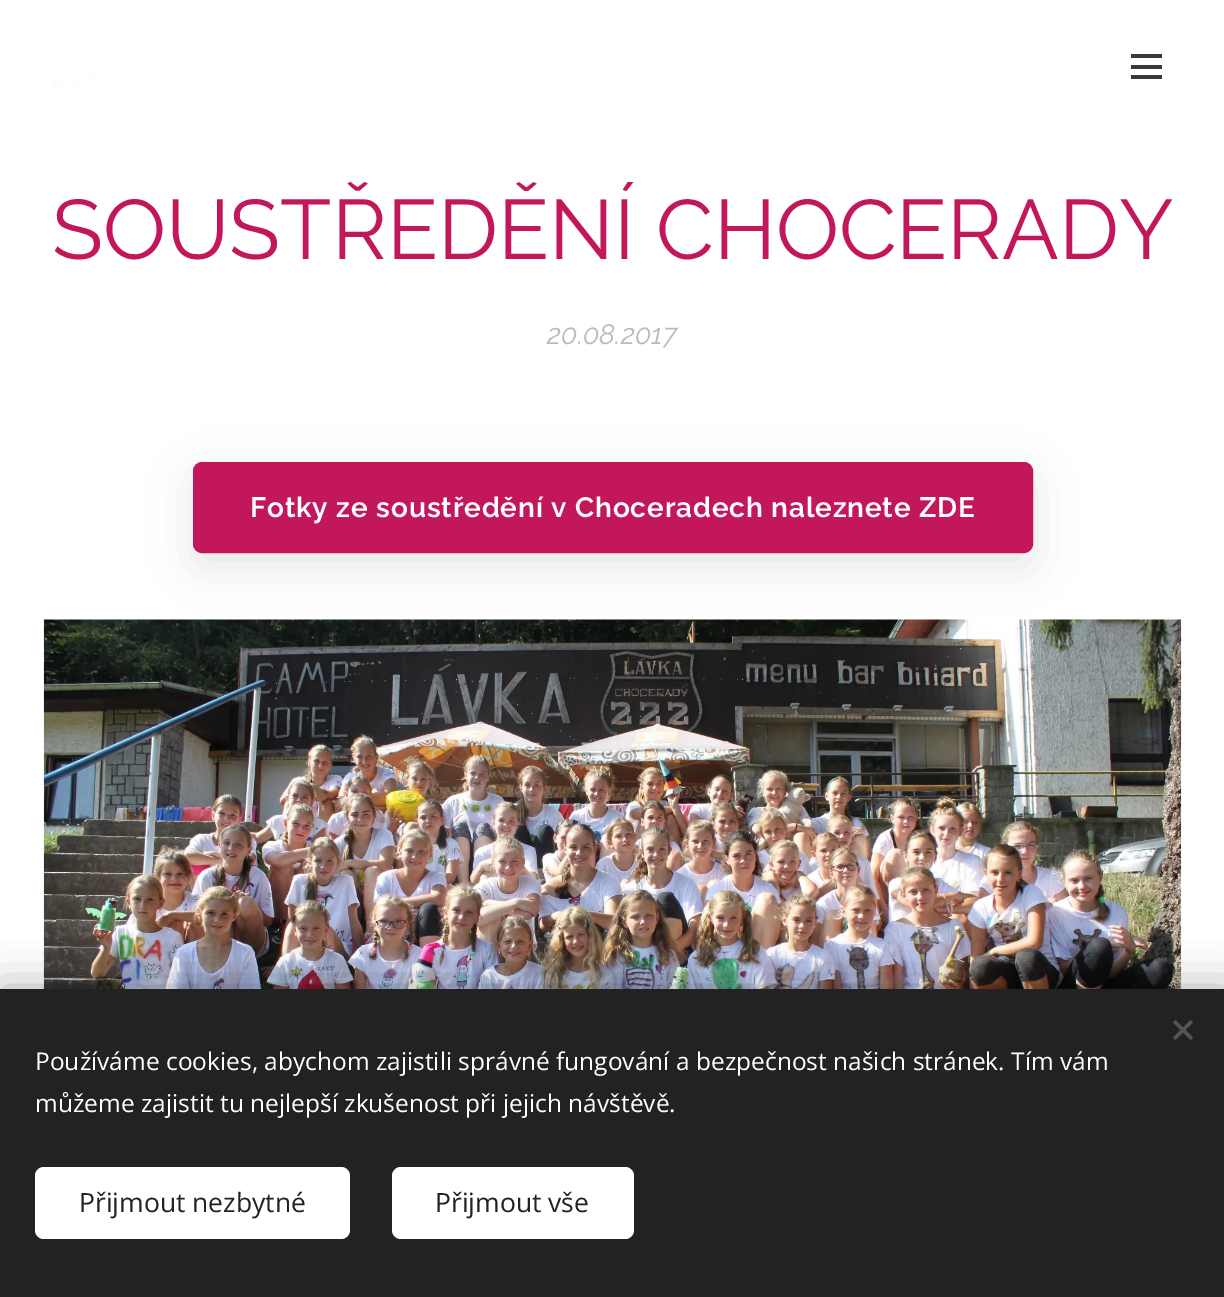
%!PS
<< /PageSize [1224 1297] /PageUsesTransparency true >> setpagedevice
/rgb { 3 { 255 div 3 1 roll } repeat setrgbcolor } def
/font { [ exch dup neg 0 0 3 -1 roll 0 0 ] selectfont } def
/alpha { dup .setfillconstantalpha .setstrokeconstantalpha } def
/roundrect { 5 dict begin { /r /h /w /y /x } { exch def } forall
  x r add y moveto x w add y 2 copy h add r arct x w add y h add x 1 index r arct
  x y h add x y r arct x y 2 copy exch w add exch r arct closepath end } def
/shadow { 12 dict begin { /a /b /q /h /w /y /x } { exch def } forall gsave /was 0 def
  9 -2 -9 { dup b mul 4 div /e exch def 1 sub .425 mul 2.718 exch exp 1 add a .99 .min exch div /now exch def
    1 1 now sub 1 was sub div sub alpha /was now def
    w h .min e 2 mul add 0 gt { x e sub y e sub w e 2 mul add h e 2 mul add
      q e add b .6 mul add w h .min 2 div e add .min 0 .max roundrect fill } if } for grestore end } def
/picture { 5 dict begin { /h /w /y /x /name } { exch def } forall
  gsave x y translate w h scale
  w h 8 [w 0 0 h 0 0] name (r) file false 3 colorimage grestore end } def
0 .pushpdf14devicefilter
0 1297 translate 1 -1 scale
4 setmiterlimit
255 255 255 rgb
0 0 1224 1297 rectfill
(img/1.rgb) 51 14 73 80 picture
[
  [1131 65 31 4 57 57 57]
  [1131 54 31 4 57 57 57]
  [1131 75 31 4 57 57 57]
] { aload pop rgb rectfill } forall
0 0 0 rgb
193 476 840 91 9 22 0.1 shadow
194 24 91 rgb
194 463 838 89 8 roundrect gsave fill grestore
2 setlinewidth
stroke
(img/2.rgb) 43 619 1139 370 picture
0 0 0 rgb
0 989 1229 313 0 22 0.33 shadow
34 34 34 rgb
0 989 1224 308 rectfill
85 85 85 rgb
1173 1037.5 moveto 1190.5 1020 lineto 1193 1022.5 lineto 1175.5 1040 lineto closepath fill
1175.5 1020 moveto 1193 1037.5 lineto 1190.5 1040 lineto 1173 1022.5 lineto closepath fill
255 255 255 rgb
35 1167 315 72 9 roundrect fill
392 1167 242 72 9 roundrect fill
/Raleway-Regular 84 font
194 24 91 rgb
52 259 moveto (SOUSTŘEDĚNÍ CHOCERADY) show
/Raleway-Italic 28 font
186 186 186 rgb
547 344 moveto (20.08.2017) show
/Raleway-SemiBold 28 font
255 255 255 rgb
250 517 moveto 0.85 0 (Fotky ze soustředění v Choceradech naleznete ZDE) ashow
/OpenSans-Regular 24.5 font
35 1070 moveto (Používáme cookies, abychom zajistili správné fungování a bezpečnost našich stránek. Tím vám) show
35 1112 moveto (můžeme zajistit tu nejlepší zkušenost při jejich návštěvě.) show
/OpenSans-Regular 26.5 font
34 34 34 rgb
79 1212 moveto (Přijmout nezbytné) show
435 1212 moveto (Přijmout vše) show
.poppdf14devicefilter showpage
